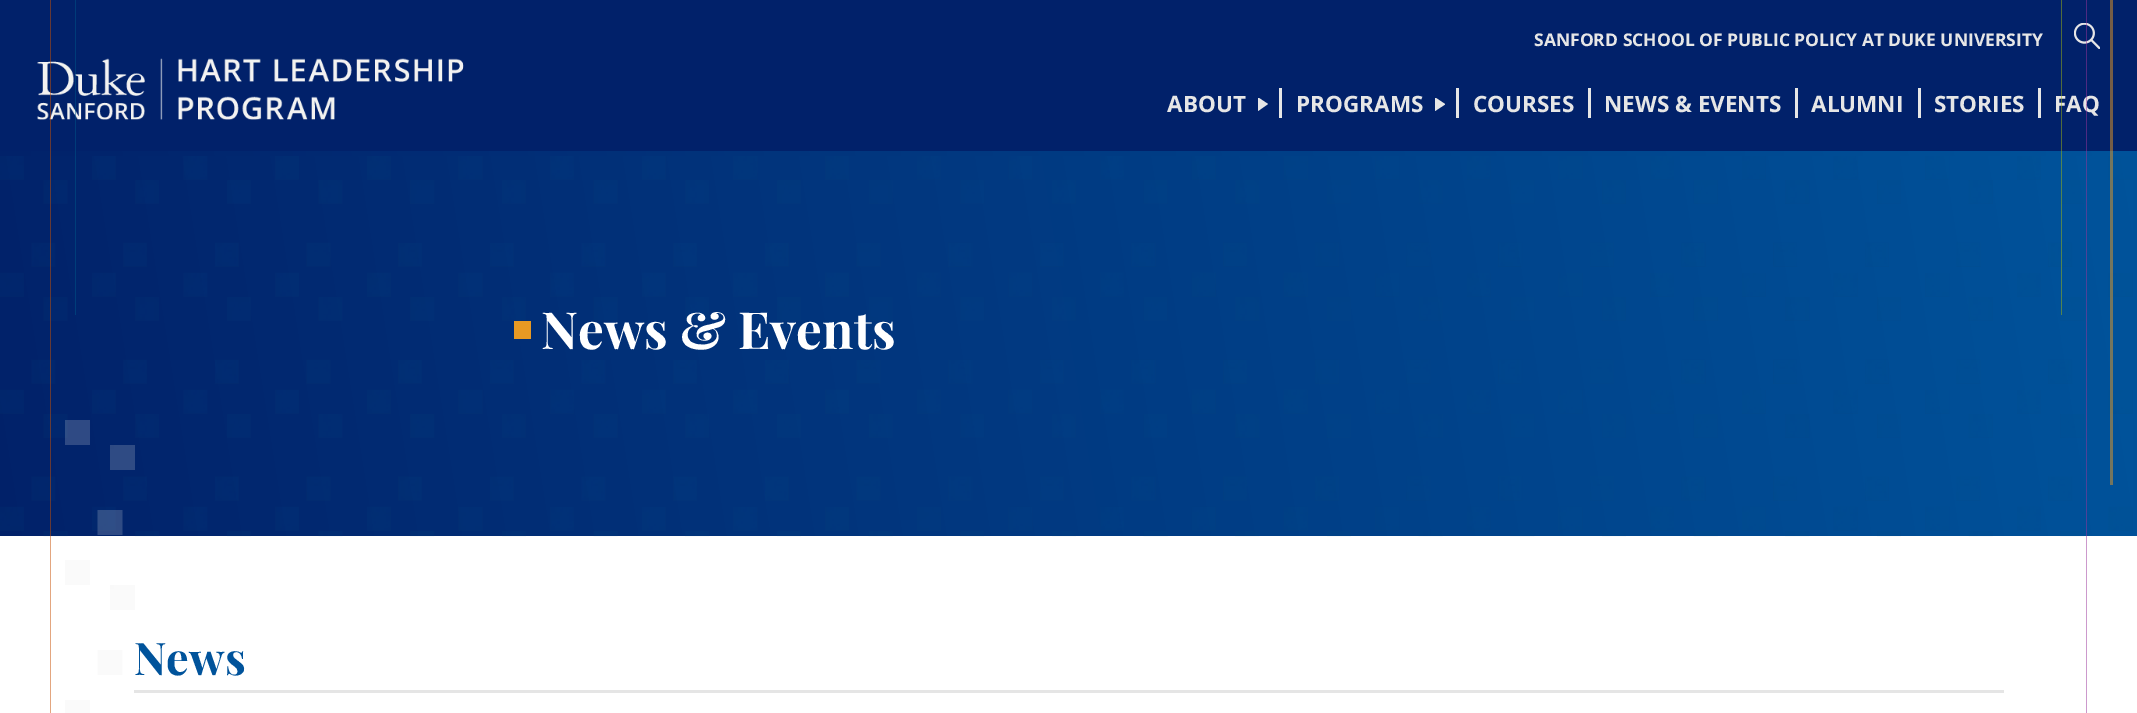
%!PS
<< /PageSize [2137 713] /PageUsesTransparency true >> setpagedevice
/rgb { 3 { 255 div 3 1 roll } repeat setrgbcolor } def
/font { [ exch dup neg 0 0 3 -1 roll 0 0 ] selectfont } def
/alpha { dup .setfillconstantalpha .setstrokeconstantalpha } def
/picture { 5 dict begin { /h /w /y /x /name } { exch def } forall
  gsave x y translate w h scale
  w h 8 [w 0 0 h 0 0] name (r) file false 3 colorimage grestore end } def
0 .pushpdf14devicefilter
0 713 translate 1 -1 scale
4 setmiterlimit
255 255 255 rgb
0 0 2137 713 rectfill
1 33 106 rgb
0 0 2137 151 rectfill
(img/1.rgb) 37 58 427 62 picture
gsave 0 151 moveto 2137 151 lineto 2137 536 lineto 0 536 lineto closepath clip newpath
<< /ShadingType 2 /ColorSpace /DeviceRGB /Coords [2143 161 -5.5 501] /Extend [true true] /Function << /FunctionType 2 /Domain [0 1] /C0 [0 0.325 0.608] /C1 [0.004 0.129 0.412] /N 1 >> >> shfill grestore
(img/3.rgb) 0 156 2133 381 picture
0.5 alpha
200 78 0 rgb
50 0 1 713 rectfill
0 85 135 rgb
75 0 1 315 rectfill
1 alpha
(img/2.rgb) 2074 23 26 26 picture
230 230 230 rgb
1259 98 moveto 1258 98 lineto 1258 111 lineto 1268 104 lineto closepath fill
1279 88 3 30 rectfill
1436 98 moveto 1435 98 lineto 1435 111 lineto 1445 104.5 lineto 1445 104 lineto closepath fill
[
  [1456 88 3 30 230 230 230]
  [1588 88 3 30 230 230 230]
  [1795 88 3 30 230 230 230]
  [1918 88 3 30 230 230 230]
  [2038 88 3 30 230 230 230]
] { aload pop rgb rectfill } forall
0.5 alpha
[
  [2110 0 3 485 232 153 35]
] { aload pop rgb rectfill } forall
1 alpha
[
  [514 321 17 18 232 153 35]
  [134 690 1870 3 229 229 229]
] { aload pop rgb rectfill } forall
(img/4.rgb) 65 420 70 293 picture
/OpenSans-Bold 17.5 font
230 230 230 rgb
1534 46 moveto (SANFORD SCHOOL OF PUBLIC POLICY AT DUKE UNIVERSITY) show
/OpenSans-Bold 22.5 font
[
  [(ABOUT) 1167 112]
  [(PROGRAMS) 1296 112]
  [(COURSES) 1473 112]
  [(NEWS & EVENTS) 1604 112]
  [(ALUMNI) 1811 112]
  [(STORIES) 1934 112]
  [(FAQ) 2054 112]
] { aload pop moveto show } forall
0.5 alpha
153 51 153 rgb
2086 0 1 713 rectfill
161 183 13 rgb
2061 0 1 315 rectfill
/PlayfairDisplay-Bold 51.25 font
1 alpha
255 255 255 rgb
541 349 moveto (News & Events) show
/PlayfairDisplay-Bold 45 font
0 83 155 rgb
134 675 moveto (News) show
.poppdf14devicefilter showpage
